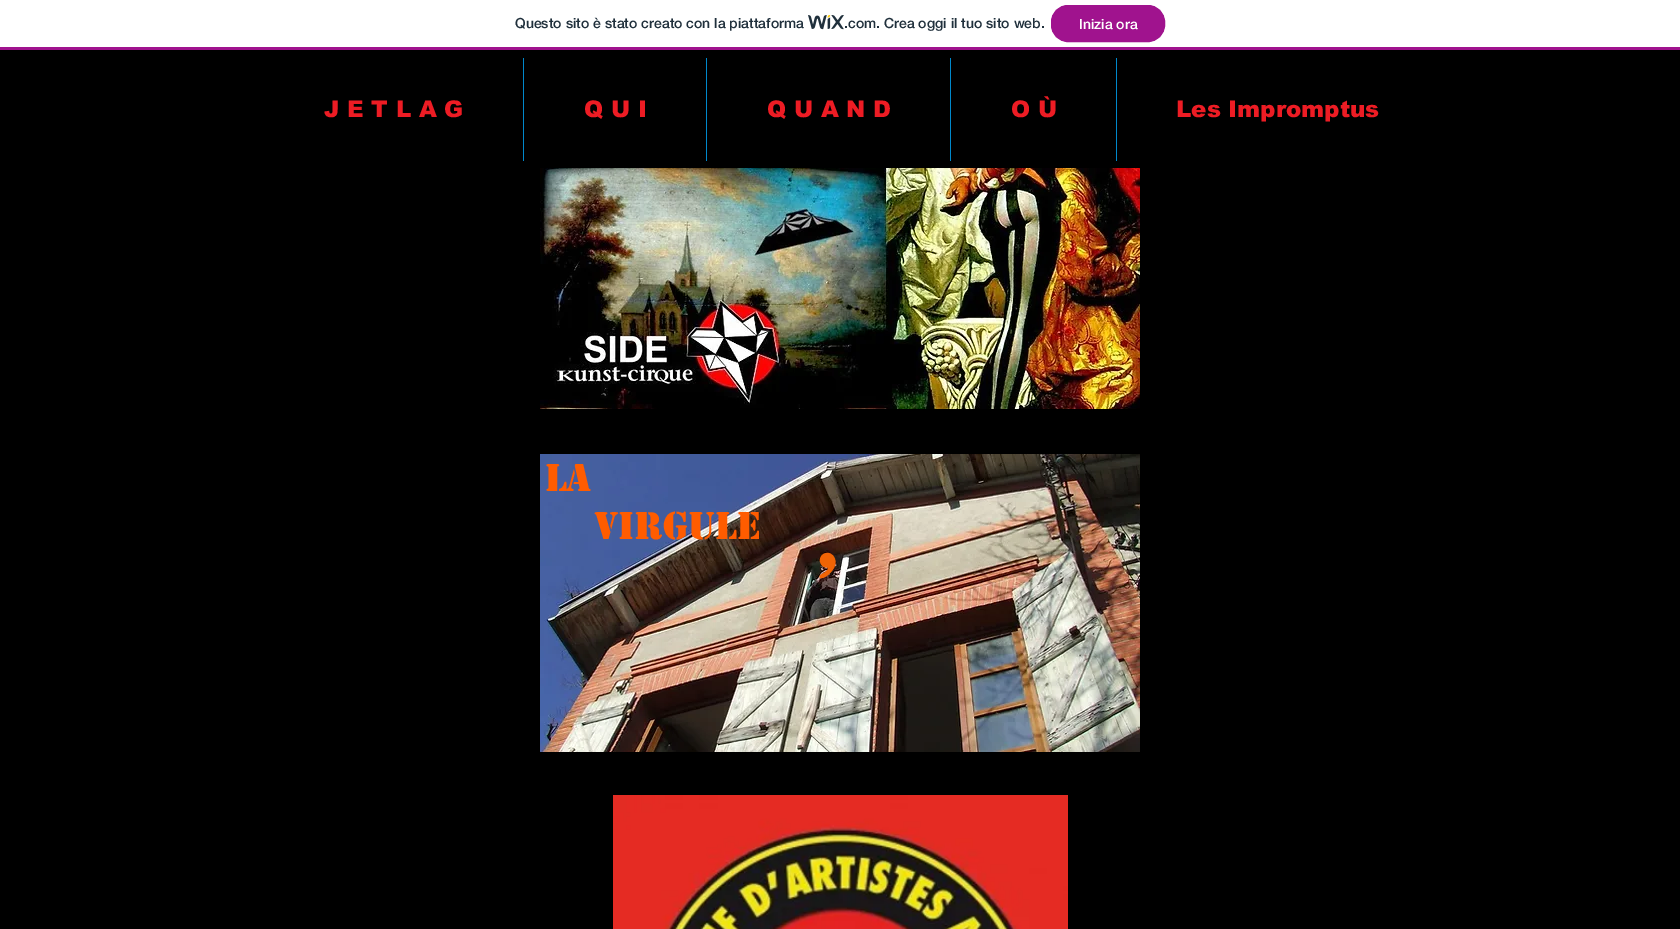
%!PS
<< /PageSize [1680 929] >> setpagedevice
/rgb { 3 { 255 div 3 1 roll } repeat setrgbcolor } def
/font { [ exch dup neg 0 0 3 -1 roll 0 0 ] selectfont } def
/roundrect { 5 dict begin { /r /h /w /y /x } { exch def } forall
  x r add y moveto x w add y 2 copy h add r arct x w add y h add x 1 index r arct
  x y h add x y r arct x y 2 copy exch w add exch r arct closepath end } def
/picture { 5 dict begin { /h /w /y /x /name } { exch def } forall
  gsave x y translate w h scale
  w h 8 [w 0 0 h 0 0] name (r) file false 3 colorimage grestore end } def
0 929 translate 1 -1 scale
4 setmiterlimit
255 255 255 rgb
0 0 1680 929 rectfill
160 19 142 rgb
0 47 1680 3 rectfill
(img/1.rgb) 808 15 36 15 picture
1051.5 5.5 113 36 16.5 roundrect gsave fill grestore
stroke
[
  [0 50 1680 879 0 0 0]
  [523 58 1 103 0 136 203]
  [706 58 1 103 0 136 203]
  [950 58 1 103 0 136 203]
  [1116 58 1 103 0 136 203]
] { aload pop rgb rectfill } forall
(img/2.rgb) 540 168 600 241 picture
(img/3.rgb) 540 454 600 298 picture
(img/4.rgb) 613 795 455 134 picture
/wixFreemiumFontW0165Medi-Medium 14 font
32 48 60 rgb
515 28 moveto (Questo sito è stato creato con la piattaforma) show
844 28 moveto (.com. Crea oggi il tuo sito web.) show
255 255 255 rgb
1079 29 moveto (Inizia ora) show
/arial-Black 23 font
237 28 36 rgb
[
  [(J E T L A G) 324 117]
  [(Q U I) 584 117]
  [(Q U A N D) 767 117]
  [(O Ù) 1011 117]
  [(Les Impromptus) 1176 117]
] { aload pop moveto show } forall
/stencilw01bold-Bold 36 font
255 92 0 rgb
545 491 moveto (LA) show
594 539 moveto (VIRGULE) show
/stencilw01bold-Bold 72 font
241 100 5 rgb
814 568 moveto (,) show
showpage
